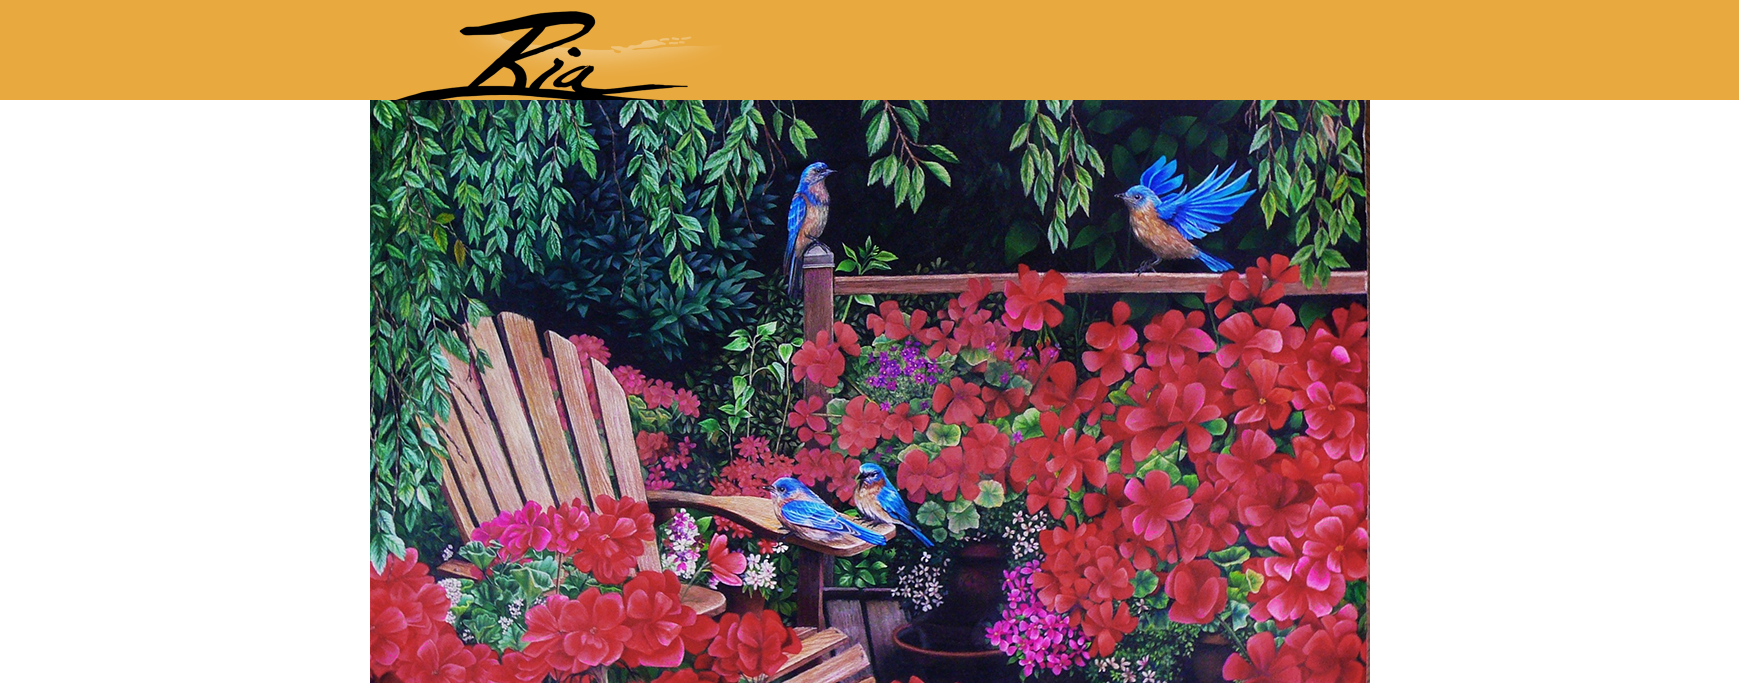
%!PS
<< /PageSize [1739 683] >> setpagedevice
/rgb { 3 { 255 div 3 1 roll } repeat setrgbcolor } def
/picture { 5 dict begin { /h /w /y /x /name } { exch def } forall
  gsave x y translate w h scale
  w h 8 [w 0 0 h 0 0] name (r) file false 3 colorimage grestore end } def
0 683 translate 1 -1 scale
4 setmiterlimit
255 255 255 rgb
0 0 1739 683 rectfill
232 169 63 rgb
0 0 1739 100 rectfill
(img/1.rgb) 396 11 326 89 picture
(img/2.rgb) 370 100 1000 583 picture
showpage
